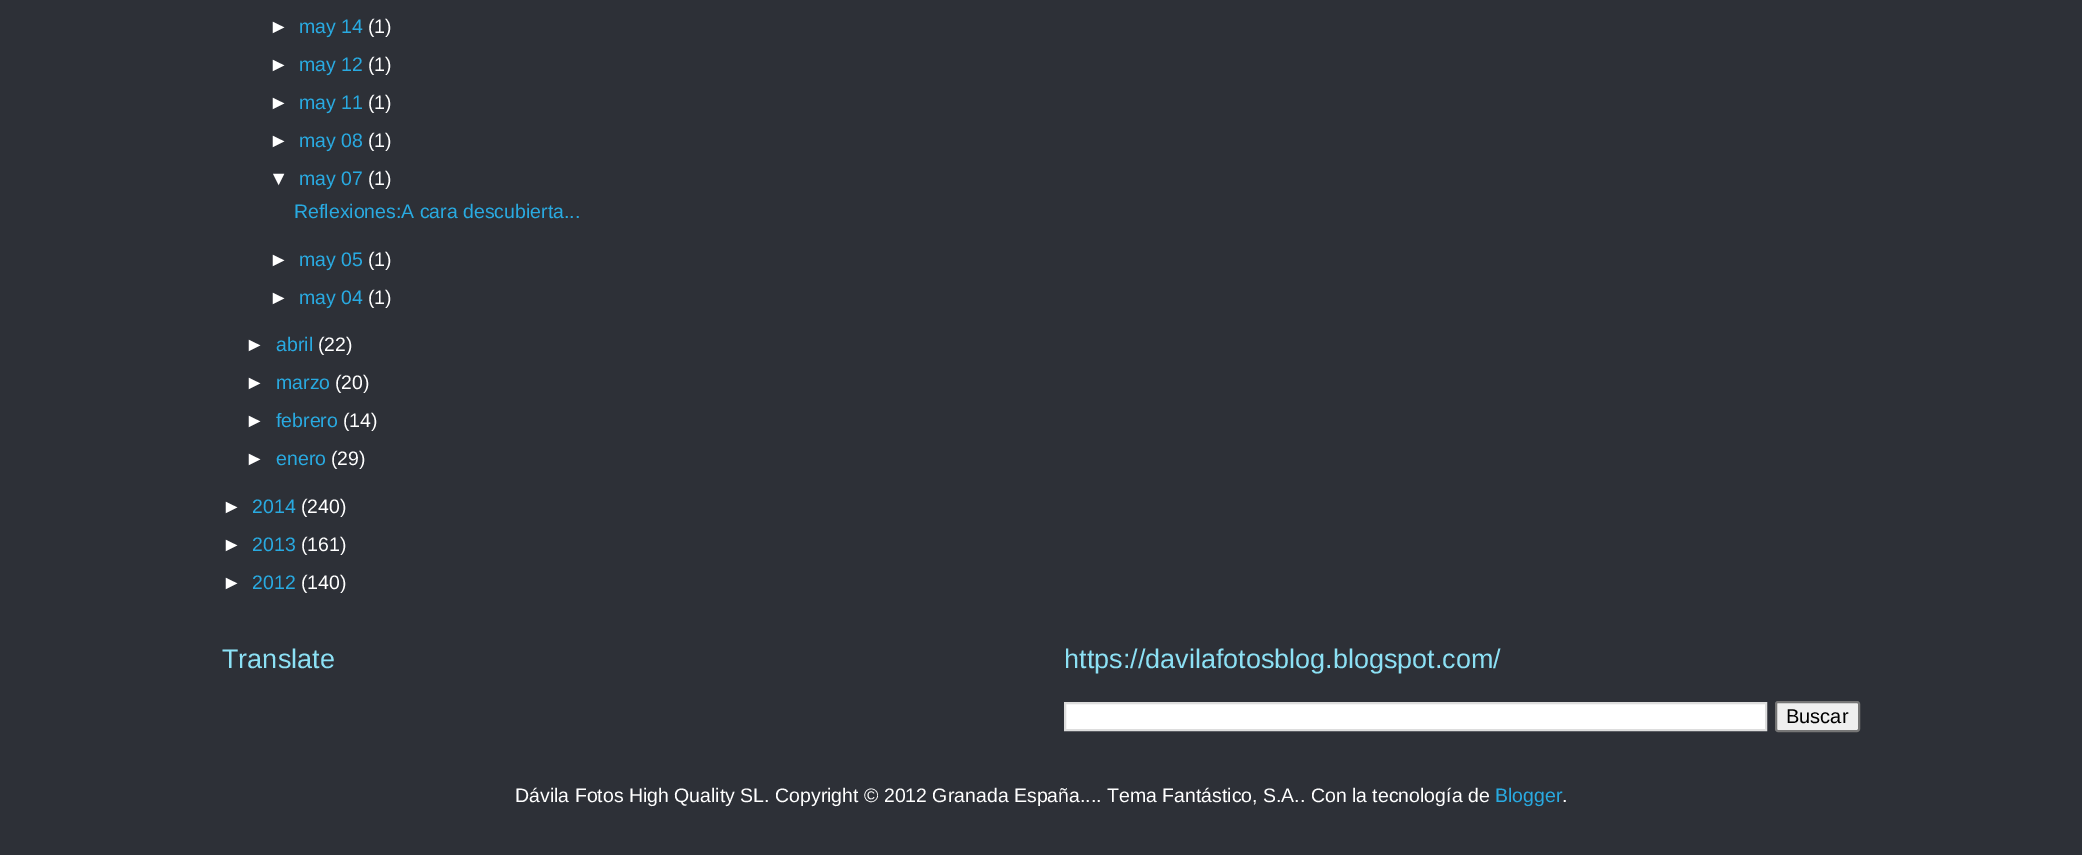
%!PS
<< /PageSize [2082 855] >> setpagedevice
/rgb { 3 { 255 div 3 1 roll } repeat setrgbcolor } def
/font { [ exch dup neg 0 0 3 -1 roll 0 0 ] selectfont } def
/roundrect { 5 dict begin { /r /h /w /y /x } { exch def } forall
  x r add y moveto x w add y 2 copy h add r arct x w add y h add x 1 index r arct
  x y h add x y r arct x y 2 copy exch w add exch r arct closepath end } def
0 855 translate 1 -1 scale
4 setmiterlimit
45 48 55 rgb
0 0 2082 855 rectfill
255 255 255 rgb
1065 703 moveto 1766 703 lineto 1766 730 lineto 1065 730 lineto closepath gsave fill grestore
221 221 221 rgb
2 setlinewidth
stroke
239 239 239 rgb
1776 702 83 29 2 roundrect gsave fill grestore
118 118 118 rgb
stroke
/LiberationSans-Regular 19.5 font
255 255 255 rgb
269 33 moveto (►) show
41 170 225 rgb
299 33 moveto (may 14) show
255 255 255 rgb
368 33 moveto (\(1\)) show
269 71 moveto (►) show
41 170 225 rgb
299 71 moveto (may 12) show
255 255 255 rgb
368 71 moveto (\(1\)) show
269 109 moveto (►) show
41 170 225 rgb
299 109 moveto (may 11) show
255 255 255 rgb
368 109 moveto (\(1\)) show
269 147 moveto (►) show
41 170 225 rgb
299 147 moveto (may 08) show
255 255 255 rgb
368 147 moveto (\(1\)) show
269 185 moveto (▼) show
41 170 225 rgb
299 185 moveto (may 07) show
255 255 255 rgb
368 185 moveto (\(1\)) show
41 170 225 rgb
294 218 moveto (Reflexiones:A cara descubierta...) show
255 255 255 rgb
269 266 moveto (►) show
41 170 225 rgb
299 266 moveto (may 05) show
255 255 255 rgb
368 266 moveto (\(1\)) show
269 304 moveto (►) show
41 170 225 rgb
299 304 moveto (may 04) show
255 255 255 rgb
368 304 moveto (\(1\)) show
245 351 moveto (►) show
41 170 225 rgb
276 351 moveto (abril) show
255 255 255 rgb
318 351 moveto (\(22\)) show
245 389 moveto (►) show
41 170 225 rgb
276 389 moveto (marzo) show
255 255 255 rgb
335 389 moveto (\(20\)) show
245 427 moveto (►) show
41 170 225 rgb
276 427 moveto (febrero) show
255 255 255 rgb
343 427 moveto (\(14\)) show
245 465 moveto (►) show
41 170 225 rgb
276 465 moveto (enero) show
255 255 255 rgb
331 465 moveto (\(29\)) show
222 513 moveto (►) show
41 170 225 rgb
252 513 moveto (2014) show
255 255 255 rgb
301 513 moveto (\(240\)) show
222 551 moveto (►) show
41 170 225 rgb
252 551 moveto (2013) show
255 255 255 rgb
301 551 moveto (\(161\)) show
222 589 moveto (►) show
41 170 225 rgb
252 589 moveto (2012) show
255 255 255 rgb
301 589 moveto (\(140\)) show
/LiberationSans-Regular 27 font
140 225 245 rgb
222 668 moveto (Translate) show
1064 668 moveto (https://davilafotosblog.blogspot.com/) show
/LiberationSans-Regular 20 font
0 0 0 rgb
1786 723 moveto (Buscar) show
/LiberationSans-Regular 19.5 font
255 255 255 rgb
515 802 moveto (Dávila Fotos High Quality SL. Copyright © 2012 Granada España.... Tema Fantástico, S.A.. Con la tecnología de) show
41 170 225 rgb
1495 802 moveto (Blogger) show
255 255 255 rgb
1562 802 moveto (.) show
showpage
